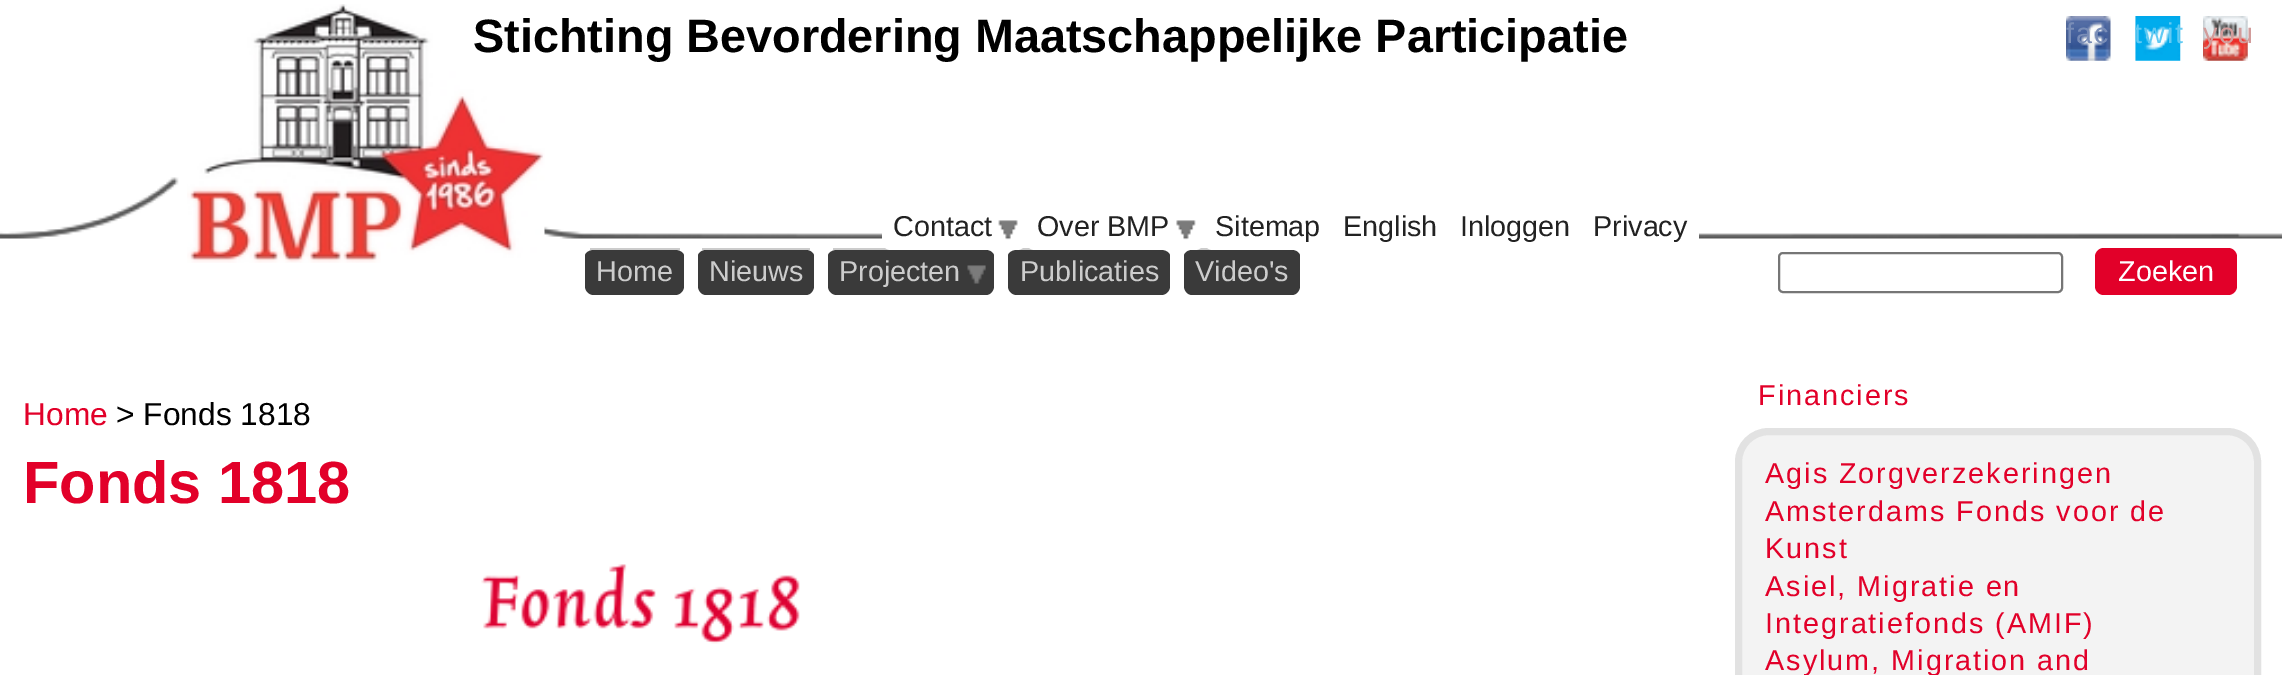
%!PS
<< /PageSize [2282 675] >> setpagedevice
/rgb { 3 { 255 div 3 1 roll } repeat setrgbcolor } def
/font { [ exch dup neg 0 0 3 -1 roll 0 0 ] selectfont } def
/roundrect { 5 dict begin { /r /h /w /y /x } { exch def } forall
  x r add y moveto x w add y 2 copy h add r arct x w add y h add x 1 index r arct
  x y h add x y r arct x y 2 copy exch w add exch r arct closepath end } def
/picture { 5 dict begin { /h /w /y /x /name } { exch def } forall
  gsave x y translate w h scale
  w h 8 [w 0 0 h 0 0] name (r) file false 3 colorimage grestore end } def
0 675 translate 1 -1 scale
4 setmiterlimit
255 255 255 rgb
0 0 2282 675 rectfill
(img/1.rgb) 0 177 2282 62 picture
(img/2.rgb) 187 4 358 259 picture
(img/3.rgb) 2066 16 45 45 picture
(img/4.rgb) 2135 16 46 45 picture
(img/5.rgb) 2203 16 45 45 picture
204 204 204 rgb
833 248 58 2 rectfill
1013 248 22 2 rectfill
255 255 255 rgb
882 205 144 45 9 roundrect fill
(img/6.rgb) 998 220 20 20 picture
204 204 204 rgb
1188 248 25 2 rectfill
255 255 255 rgb
1026 205 178 45 9 roundrect fill
(img/7.rgb) 1176 220 20 20 picture
1204 205 128 45 9 roundrect fill
1332 205 117 45 9 roundrect fill
1449 205 133 45 9 roundrect fill
1582 205 117 45 9 roundrect fill
58 58 58 rgb
594 250 moveto 675 250 lineto 680 250 684 253 684 256 curveto 684 286 lineto 684 291 680 295 675 295 curveto 594 295 lineto 589 295 585 291 585 286 curveto 585 256 lineto 585 253 589 250 594 250 curveto closepath fill
204 204 204 rgb
590 248 90 2 rectfill
58 58 58 rgb
706 250 moveto 806 250 lineto 810 250 814 253 814 256 curveto 814 286 lineto 814 291 810 295 806 295 curveto 706 295 lineto 702 295 698 291 698 286 curveto 698 256 lineto 698 253 702 250 706 250 curveto closepath fill
204 204 204 rgb
702 248 108 2 rectfill
58 58 58 rgb
837 250 moveto 986 250 lineto 990 250 994 253 994 256 curveto 994 286 lineto 994 291 990 295 986 295 curveto 837 295 lineto 832 295 828 291 828 286 curveto 828 256 lineto 828 253 832 250 837 250 curveto closepath fill
(img/8.rgb) 967 265 19 19 picture
1017 250 moveto 1161 250 lineto 1166 250 1170 253 1170 256 curveto 1170 286 lineto 1170 291 1166 295 1161 295 curveto 1017 295 lineto 1012 295 1008 291 1008 286 curveto 1008 256 lineto 1008 253 1012 250 1017 250 curveto closepath fill
1192 250 moveto 1292 250 lineto 1296 250 1300 253 1300 256 curveto 1300 286 lineto 1300 291 1296 295 1292 295 curveto 1192 295 lineto 1188 295 1184 291 1184 286 curveto 1184 256 lineto 1184 253 1188 250 1192 250 curveto closepath fill
118 118 118 rgb
2 setlinewidth
1779 253 283 39 4 roundrect stroke
226 0 41 rgb
2095 248 142 47 9 roundrect fill
(img/9.rgb) 481 564 319 80 picture
243 243 243 rgb
1738.5 431.5 519 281 30.5 roundrect gsave fill grestore
226 226 226 rgb
7 setlinewidth
stroke
/LiberationSans-Bold 46.8 font
0 0 0 rgb
473 52 moveto (Stichting Bevordering Maatschappelijke Participatie) show
/LiberationSans-Regular 28.75 font
121 141 183 rgb
2066 43 moveto 2 0 (fac) ashow
gsave
2135 7 59 63 rectclip
97 202 243 rgb
2134 43 moveto 2 0 (twit) ashow
grestore
210 156 155 rgb
2203 43 moveto 2 0 (you) ashow
34 34 34 rgb
[
  [(Contact) 893 236]
  [(Over BMP) 1037 236]
  [(Sitemap) 1215 236]
  [(English) 1343 236]
  [(Inloggen) 1460 236]
  [(Privacy) 1593 236]
] { aload pop moveto show } forall
204 204 204 rgb
[
  [(Home) 596 281]
  [(Nieuws) 709 281]
  [(Projecten) 839 281]
  [(Publicaties) 1020 281]
  [(Video's) 1195 281]
] { aload pop moveto show } forall
255 255 255 rgb
2118 281 moveto (Zoeken) show
/LiberationSans-Regular 31.75 font
226 0 41 rgb
23 425 moveto (Home) show
0 0 0 rgb
116 425 moveto (> Fonds 1818) show
/LiberationSans-Bold 59.5 font
226 0 41 rgb
23 503 moveto (Fonds 1818) show
/LiberationSans-Regular 28.75 font
1758 405 moveto 2 0 (Financiers) ashow
1765 483 moveto 2 0 (Agis Zorgverzekeringen) ashow
1765 521 moveto 2 0 (Amsterdams Fonds voor de) ashow
1765 558 moveto 2 0 (Kunst) ashow
1765 596 moveto 2 0 (Asiel, Migratie en) ashow
1765 633 moveto 2 0 (Integratiefonds \(AMIF\)) ashow
1765 670 moveto 2 0 (Asylum, Migration and) ashow
showpage
